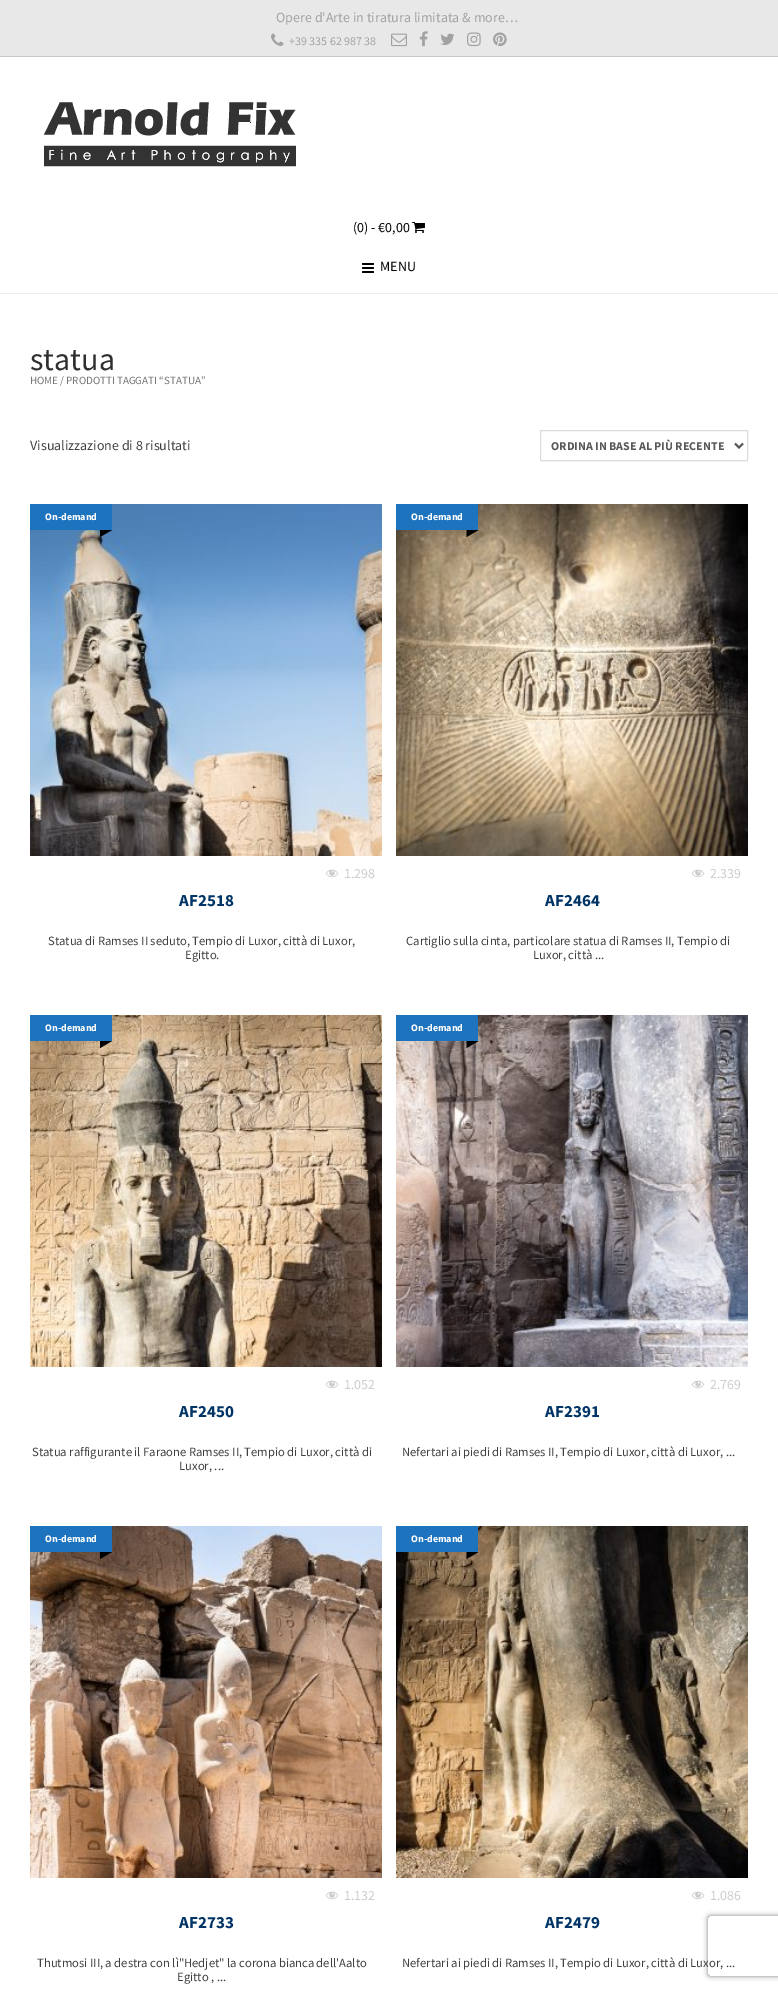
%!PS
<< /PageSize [778 1990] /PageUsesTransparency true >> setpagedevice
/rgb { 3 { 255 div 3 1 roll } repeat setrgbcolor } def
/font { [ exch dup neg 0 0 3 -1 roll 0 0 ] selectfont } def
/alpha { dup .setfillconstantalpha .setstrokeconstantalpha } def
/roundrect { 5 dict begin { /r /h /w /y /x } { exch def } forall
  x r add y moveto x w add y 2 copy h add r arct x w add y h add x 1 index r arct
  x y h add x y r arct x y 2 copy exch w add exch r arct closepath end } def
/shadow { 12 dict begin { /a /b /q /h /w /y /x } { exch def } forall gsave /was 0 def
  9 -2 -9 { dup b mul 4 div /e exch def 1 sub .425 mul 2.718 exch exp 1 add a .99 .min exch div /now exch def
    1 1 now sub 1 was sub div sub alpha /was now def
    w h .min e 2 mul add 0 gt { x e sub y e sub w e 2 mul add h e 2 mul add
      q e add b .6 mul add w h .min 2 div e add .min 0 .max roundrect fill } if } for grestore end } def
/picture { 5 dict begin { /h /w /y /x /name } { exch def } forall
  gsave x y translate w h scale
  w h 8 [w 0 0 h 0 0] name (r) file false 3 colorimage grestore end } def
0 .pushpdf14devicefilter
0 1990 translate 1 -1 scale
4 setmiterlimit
255 255 255 rgb
0 0 778 1990 rectfill
[
  [0 293 778 1 235 235 235]
  [0 0 778 56 232 232 232]
  [0 56 778 1 200 200 200]
] { aload pop rgb rectfill } forall
(img/1.rgb) 271 33 13 13 picture
(img/2.rgb) 391 33 16 14 picture
(img/3.rgb) 419 31 9 16 picture
(img/4.rgb) 440 33 15 12 picture
(img/5.rgb) 467 32 14 15 picture
(img/6.rgb) 493 32 14 15 picture
(img/7.rgb) 43 102 253 65 picture
(img/8.rgb) 412 222 13 11 picture
(img/9.rgb) 362 263 12 10 picture
250 250 250 rgb
540 460 moveto 540 462 lineto 541 462 lineto 747 462 lineto 748 462 748 461 748 460 curveto 747 461 lineto 541 461 lineto closepath fill
220 220 220 rgb
540.5 430.5 207 30 0.5 roundrect stroke
89 89 89 rgb
2 setlinewidth
735 443.5 moveto 739 447.5 lineto 743 443.5 lineto stroke
(img/10.rgb) 30 504 352 352 picture
30 115 190 rgb
30 504 82 26 rectfill
0 0 0 rgb
100 530 moveto 100 537 lineto 112 530 lineto closepath fill
(img/11.rgb) 325 869 14 9 picture
(img/12.rgb) 396 504 352 352 picture
30 115 190 rgb
396 504 82 26 rectfill
0 0 0 rgb
466.5 530 moveto 466.5 537 lineto 478.5 530 lineto closepath fill
(img/11.rgb) 691 869 14 9 picture
(img/13.rgb) 30 1015 352 352 picture
30 115 190 rgb
30 1015 82 26 rectfill
0 0 0 rgb
100 1041 moveto 100 1048 lineto 112 1041 lineto closepath fill
(img/11.rgb) 325 1380 14 9 picture
(img/14.rgb) 396 1015 352 352 picture
30 115 190 rgb
396 1015 82 26 rectfill
0 0 0 rgb
466.5 1041 moveto 466.5 1048 lineto 478.5 1041 lineto closepath fill
(img/11.rgb) 691 1380 14 9 picture
(img/15.rgb) 30 1526 352 352 picture
30 115 190 rgb
30 1526 82 26 rectfill
0 0 0 rgb
100 1552 moveto 100 1559 lineto 112 1552 lineto closepath fill
(img/11.rgb) 325 1891 14 9 picture
(img/16.rgb) 396 1526 352 352 picture
30 115 190 rgb
396 1526 82 26 rectfill
0 0 0 rgb
466.5 1552 moveto 466.5 1559 lineto 478.5 1552 lineto closepath fill
(img/11.rgb) 691 1891 14 9 picture
gsave
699 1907 moveto 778 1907 lineto 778 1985 lineto 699 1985 lineto closepath 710 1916 moveto 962 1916 lineto 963 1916 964 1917 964 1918 curveto 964 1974 lineto 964 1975 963 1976 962 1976 curveto 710 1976 lineto 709 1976 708 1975 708 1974 curveto 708 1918 lineto 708 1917 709 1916 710 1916 curveto closepath eoclip newpath
128 128 128 rgb
708 1916 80 60 2 2.5 1 shadow
grestore
/SourceSansPro-Regular 14 font
162 162 162 rgb
276 22 moveto (Opere d'Arte in tiratura limitata & more…) show
/SourceSansPro-Regular 12 font
289 45 moveto (+39 335 62 987 38) show
/SourceSansPro-Regular 14 font
0 0 0 rgb
353 232 moveto (\(0\) - €0,00) show
380 271 moveto (MENU) show
/SourceSansPro-Regular 32 font
47 47 47 rgb
30 370 moveto (statua) show
/SourceSansPro-Regular 11 font
118 118 118 rgb
30 384 moveto (HOME) show
60 384 moveto (/ PRODOTTI TAGGATI “STATUA”) show
/SourceSansPro-Regular 14 font
64 64 64 rgb
30 450 moveto (Visualizzazione di 8 risultati) show
/SourceSansPro-Bold 12 font
89 89 89 rgb
551 450 moveto (ORDINA IN BASE AL PIÙ RECENTE) show
/SourceSansPro-Bold 10 font
255 255 255 rgb
45 520 moveto (On-demand) show
/SourceSansPro-Regular 14 font
204 204 204 rgb
344 878 moveto (1.298) show
/SourceSansPro-Bold 17 font
0 51 102 rgb
179 906 moveto (AF2518) show
/SourceSansPro-Regular 12.6 font
64 64 64 rgb
48 945 moveto (Statua di Ramses II seduto, Tempio di Luxor, città di Luxor,) show
185 959 moveto (Egitto.) show
/SourceSansPro-Bold 10 font
255 255 255 rgb
411 520 moveto (On-demand) show
/SourceSansPro-Regular 14 font
204 204 204 rgb
710 878 moveto (2.339) show
/SourceSansPro-Bold 17 font
0 51 102 rgb
545 906 moveto (AF2464) show
/SourceSansPro-Regular 12.6 font
64 64 64 rgb
406 945 moveto (Cartiglio sulla cinta, particolare statua di Ramses II, Tempio di) show
533 959 moveto (Luxor, città ...) show
/SourceSansPro-Bold 10 font
255 255 255 rgb
45 1031 moveto (On-demand) show
/SourceSansPro-Regular 14 font
204 204 204 rgb
344 1389 moveto (1.052) show
/SourceSansPro-Bold 17 font
0 51 102 rgb
179 1417 moveto (AF2450) show
/SourceSansPro-Regular 12.6 font
64 64 64 rgb
32 1456 moveto (Statua raffigurante il Faraone Ramses II, Tempio di Luxor, città di) show
179 1470 moveto (Luxor, ...) show
/SourceSansPro-Bold 10 font
255 255 255 rgb
411 1031 moveto (On-demand) show
/SourceSansPro-Regular 14 font
204 204 204 rgb
710 1389 moveto (2.769) show
/SourceSansPro-Bold 17 font
0 51 102 rgb
545 1417 moveto (AF2391) show
/SourceSansPro-Regular 12.6 font
64 64 64 rgb
402 1456 moveto (Nefertari ai piedi di Ramses II, Tempio di Luxor, città di Luxor, ...) show
/SourceSansPro-Bold 10 font
255 255 255 rgb
45 1542 moveto (On-demand) show
/SourceSansPro-Regular 14 font
204 204 204 rgb
344 1900 moveto (1.132) show
/SourceSansPro-Bold 17 font
0 51 102 rgb
179 1928 moveto (AF2733) show
/SourceSansPro-Regular 12.6 font
64 64 64 rgb
37 1967 moveto (Thutmosi III, a destra con lì"Hedjet" la corona bianca dell'Aalto) show
177 1981 moveto (Egitto , ...) show
/SourceSansPro-Bold 10 font
255 255 255 rgb
411 1542 moveto (On-demand) show
/SourceSansPro-Regular 14 font
204 204 204 rgb
710 1900 moveto (1.086) show
/SourceSansPro-Bold 17 font
0 51 102 rgb
545 1928 moveto (AF2479) show
/SourceSansPro-Regular 12.6 font
64 64 64 rgb
402 1967 moveto (Nefertari ai piedi di Ramses II, Tempio di Luxor, città di Luxor, ...) show
.poppdf14devicefilter showpage
